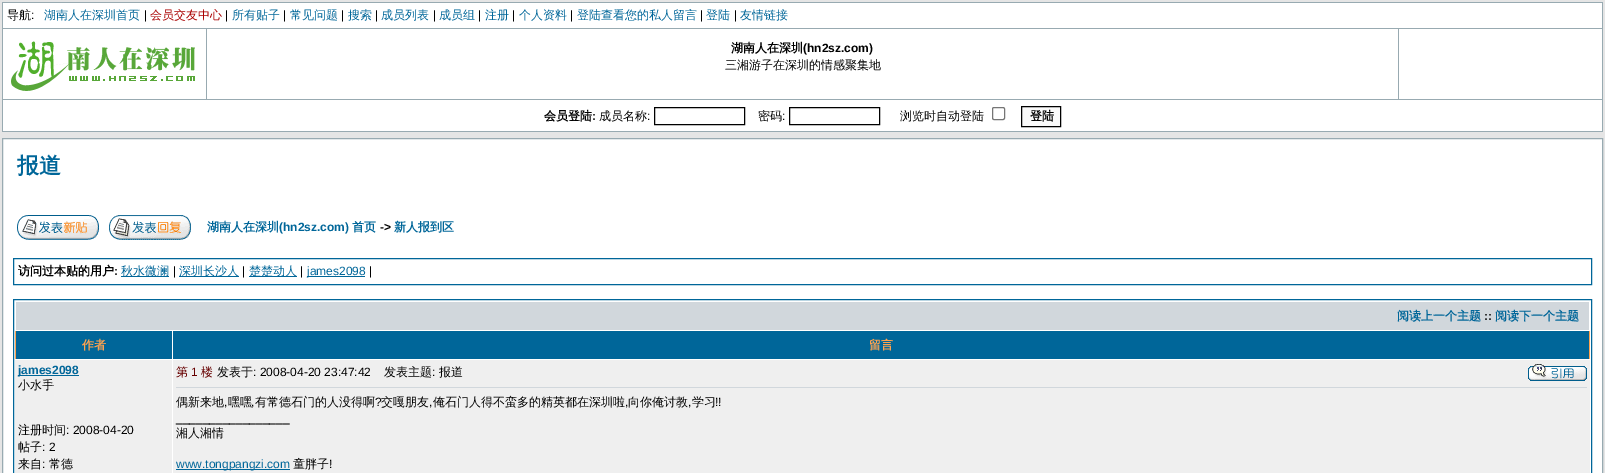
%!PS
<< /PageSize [1605 473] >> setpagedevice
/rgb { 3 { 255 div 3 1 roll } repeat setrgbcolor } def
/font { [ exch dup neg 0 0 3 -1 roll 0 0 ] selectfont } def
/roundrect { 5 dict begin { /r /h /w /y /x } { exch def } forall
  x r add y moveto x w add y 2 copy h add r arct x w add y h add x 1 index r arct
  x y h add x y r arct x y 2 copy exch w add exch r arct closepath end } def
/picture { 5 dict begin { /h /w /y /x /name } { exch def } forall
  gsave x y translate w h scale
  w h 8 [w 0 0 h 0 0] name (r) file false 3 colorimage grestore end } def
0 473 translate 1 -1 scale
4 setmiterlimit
229 229 229 rgb
0 0 1605 473 rectfill
[
  [2 2 1601 130 152 170 177]
  [3 3 1599 25 255 255 255]
  [3 29 203 70 255 255 255]
] { aload pop rgb rectfill } forall
(img/1.rgb) 11 41 184 50 picture
[
  [207 29 1191 70 255 255 255]
  [1399 29 203 70 255 255 255]
  [3 100 1599 31 255 255 255]
] { aload pop rgb rectfill } forall
0 0 0 rgb
654.5 107.5 90 17 rectstroke
789.5 107.5 90 17 rectstroke
118 118 118 rgb
992.5 107.5 12 12 1.5 roundrect stroke
250 250 250 rgb
1021.5 106.5 moveto 1060.5 106.5 lineto 1060.5 126.5 lineto 1021.5 126.5 lineto closepath gsave fill grestore
0 0 0 rgb
stroke
255 255 255 rgb
2.5 138.5 moveto 1602.5 138.5 lineto 1602.5 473.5 lineto 2.5 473.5 lineto closepath gsave fill grestore
152 170 177 rgb
stroke
(img/2.rgb) 17 215 82 25 picture
(img/3.rgb) 109 215 82 25 picture
0 102 153 rgb
13.5 258.5 1578 26 rectstroke
[
  [121 276 48 1 0 102 153]
  [179 276 60 1 0 102 153]
  [249 276 48 1 0 102 153]
  [307 276 58 1 0 102 153]
] { aload pop rgb rectfill } forall
13.5 299.5 1578 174 rectstroke
[
  [16 302 1573 28 209 215 220]
  [16 331 156 28 0 102 153]
  [15 331 1 28 255 163 79]
  [173 331 1416 28 0 102 153]
  [1589 331 1 28 255 163 79]
  [15 360 157 113 239 239 239]
  [18 375 61 1 0 102 153]
  [173 360 1417 113 239 239 239]
] { aload pop rgb rectfill } forall
(img/4.rgb) 1528 364 59 17 picture
209 215 220 rgb
176 387 1411 1 rectfill
0 102 153 rgb
176 469 114 1 rectfill
/WenQuanYiZenHei-Medium 12 font
0 0 0 rgb
7 19 moveto (导航) show
/LiberationSans-Regular 12 font
31 19 moveto (:) show
/WenQuanYiZenHei-Medium 12 font
0 102 153 rgb
44 19 moveto (湖南人在深圳首页) show
/LiberationSans-Regular 12 font
0 0 0 rgb
144 19 moveto (|) show
/WenQuanYiZenHei-Medium 12 font
170 0 0 rgb
150 19 moveto (会员交友中心) show
/LiberationSans-Regular 12 font
0 0 0 rgb
225 19 moveto (|) show
/WenQuanYiZenHei-Medium 12 font
0 102 153 rgb
232 19 moveto (所有贴子) show
/LiberationSans-Regular 12 font
0 0 0 rgb
283 19 moveto (|) show
/WenQuanYiZenHei-Medium 12 font
0 102 153 rgb
290 19 moveto (常见问题) show
/LiberationSans-Regular 12 font
0 0 0 rgb
341 19 moveto (|) show
/WenQuanYiZenHei-Medium 12 font
0 102 153 rgb
348 19 moveto (搜索) show
/LiberationSans-Regular 12 font
0 0 0 rgb
375 19 moveto (|) show
/WenQuanYiZenHei-Medium 12 font
0 102 153 rgb
381 19 moveto (成员列表) show
/LiberationSans-Regular 12 font
0 0 0 rgb
433 19 moveto (|) show
/WenQuanYiZenHei-Medium 12 font
0 102 153 rgb
439 19 moveto (成员组) show
/LiberationSans-Regular 12 font
0 0 0 rgb
478 19 moveto (|) show
/WenQuanYiZenHei-Medium 12 font
0 102 153 rgb
485 19 moveto (注册) show
/LiberationSans-Regular 12 font
0 0 0 rgb
512 19 moveto (|) show
/WenQuanYiZenHei-Medium 12 font
0 102 153 rgb
519 19 moveto (个人资料) show
/LiberationSans-Regular 12 font
0 0 0 rgb
570 19 moveto (|) show
/WenQuanYiZenHei-Medium 12 font
0 102 153 rgb
577 19 moveto (登陆查看您的私人留言) show
/LiberationSans-Regular 12 font
0 0 0 rgb
700 19 moveto (|) show
/WenQuanYiZenHei-Medium 12 font
0 102 153 rgb
706 19 moveto (登陆) show
/LiberationSans-Regular 12 font
0 0 0 rgb
734 19 moveto (|) show
/WenQuanYiZenHei-Medium 12 font
0 102 153 rgb
740 19 moveto (友情链接) show
/WenQuanYiZenHei-Bold 12 font
0 0 0 rgb
731 52 moveto (湖南人在深圳) show
/LiberationSans-Bold 12 font
803 52 moveto (\(hn2sz.com\)) show
/WenQuanYiZenHei-Medium 12 font
725 69 moveto (三湘游子在深圳的情感聚集地) show
/WenQuanYiZenHei-Bold 12 font
544 120 moveto (会员登陆) show
/LiberationSans-Bold 12 font
592 120 moveto (:) show
/WenQuanYiZenHei-Medium 12 font
599 120 moveto (成员名称) show
/LiberationSans-Regular 12 font
647 120 moveto (:) show
/WenQuanYiZenHei-Medium 12 font
758 120 moveto (密码) show
/LiberationSans-Regular 12 font
782 120 moveto (:) show
/WenQuanYiZenHei-Medium 12 font
900 120 moveto (浏览时自动登陆) show
/WenQuanYiZenHei-Bold 12 font
1030 120 moveto (登陆) show
/WenQuanYiZenHei-Bold 22 font
0 102 153 rgb
17 173 moveto (报道) show
/WenQuanYiZenHei-Bold 12 font
207 231 moveto (湖南人在深圳) show
/LiberationSans-Bold 12 font
279 231 moveto (\(hn2sz.com\)) show
/WenQuanYiZenHei-Bold 12 font
352 231 moveto (首页) show
/LiberationSans-Bold 12 font
0 0 0 rgb
380 231 moveto (->) show
/WenQuanYiZenHei-Bold 12 font
0 102 153 rgb
394 231 moveto (新人报到区) show
0 0 0 rgb
18 275 moveto (访问过本贴的用户) show
/LiberationSans-Bold 12 font
114 275 moveto (:) show
/WenQuanYiZenHei-Medium 12 font
0 102 153 rgb
121 275 moveto (秋水微澜) show
/LiberationSans-Regular 12 font
0 0 0 rgb
173 275 moveto (|) show
/WenQuanYiZenHei-Medium 12 font
0 102 153 rgb
179 275 moveto (深圳长沙人) show
/LiberationSans-Regular 12 font
0 0 0 rgb
242 275 moveto (|) show
/WenQuanYiZenHei-Medium 12 font
0 102 153 rgb
249 275 moveto (楚楚动人) show
/LiberationSans-Regular 12 font
0 0 0 rgb
300 275 moveto (|) show
0 102 153 rgb
307 275 moveto (james2098) show
0 0 0 rgb
369 275 moveto (|) show
/WenQuanYiZenHei-Bold 12 font
0 102 153 rgb
1397 320 moveto (阅读上一个主题) show
/LiberationSans-Bold 12 font
0 0 0 rgb
1484 320 moveto (::) show
/WenQuanYiZenHei-Bold 12 font
0 102 153 rgb
1495 320 moveto (阅读下一个主题) show
255 163 79 rgb
82 349 moveto (作者) show
869 349 moveto (留言) show
/LiberationSans-Bold 12 font
0 102 153 rgb
18 374 moveto (james2098) show
/WenQuanYiZenHei-Medium 12 font
0 0 0 rgb
18 389 moveto (小水手) show
18 434 moveto (注册时间) show
/LiberationSans-Regular 12 font
66 434 moveto (: 2008-04-20) show
/WenQuanYiZenHei-Medium 12 font
18 451 moveto (帖子) show
/LiberationSans-Regular 12 font
42 451 moveto (: 2) show
/WenQuanYiZenHei-Medium 12 font
18 468 moveto (来自) show
/LiberationSans-Regular 12 font
42 468 moveto (:) show
/WenQuanYiZenHei-Medium 12 font
49 468 moveto (常德) show
102 0 0 rgb
176 376 moveto (第) show
/LiberationSans-Regular 12 font
191 376 moveto (1) show
/WenQuanYiZenHei-Medium 12 font
201 376 moveto (楼) show
0 0 0 rgb
217 376 moveto (发表于) show
/LiberationSans-Regular 12 font
253 376 moveto (: 2008-04-20 23:47:42) show
/WenQuanYiZenHei-Medium 12 font
384 376 moveto (发表主题) show
/LiberationSans-Regular 12 font
432 376 moveto (:) show
/WenQuanYiZenHei-Medium 12 font
439 376 moveto (报道) show
176 406 moveto (偶新来地 嘿嘿 有常德石门的人没得啊) show
/LiberationSans-Regular 12 font
375 406 moveto (?) show
/WenQuanYiZenHei-Medium 12 font
381 406 moveto (交嘎朋友 俺石门人得不蛮多的精英都在深圳啦 向你俺讨教 学习) show
/LiberationSans-Regular 12 font
[
  [(!!) 715 406]
  [(,) 224 406]
  [(,) 251 406]
  [(,) 429 406]
  [(,) 625 406]
  [(,) 688 406]
  [(_________________) 176 422]
] { aload pop moveto show } forall
/WenQuanYiZenHei-Medium 12 font
176 437 moveto (湘人湘情) show
/LiberationSans-Regular 12 font
0 102 153 rgb
176 468 moveto (www.tongpangzi.com) show
/WenQuanYiZenHei-Medium 12 font
0 0 0 rgb
293 468 moveto (童胖子) show
/LiberationSans-Regular 12 font
329 468 moveto (!) show
showpage
